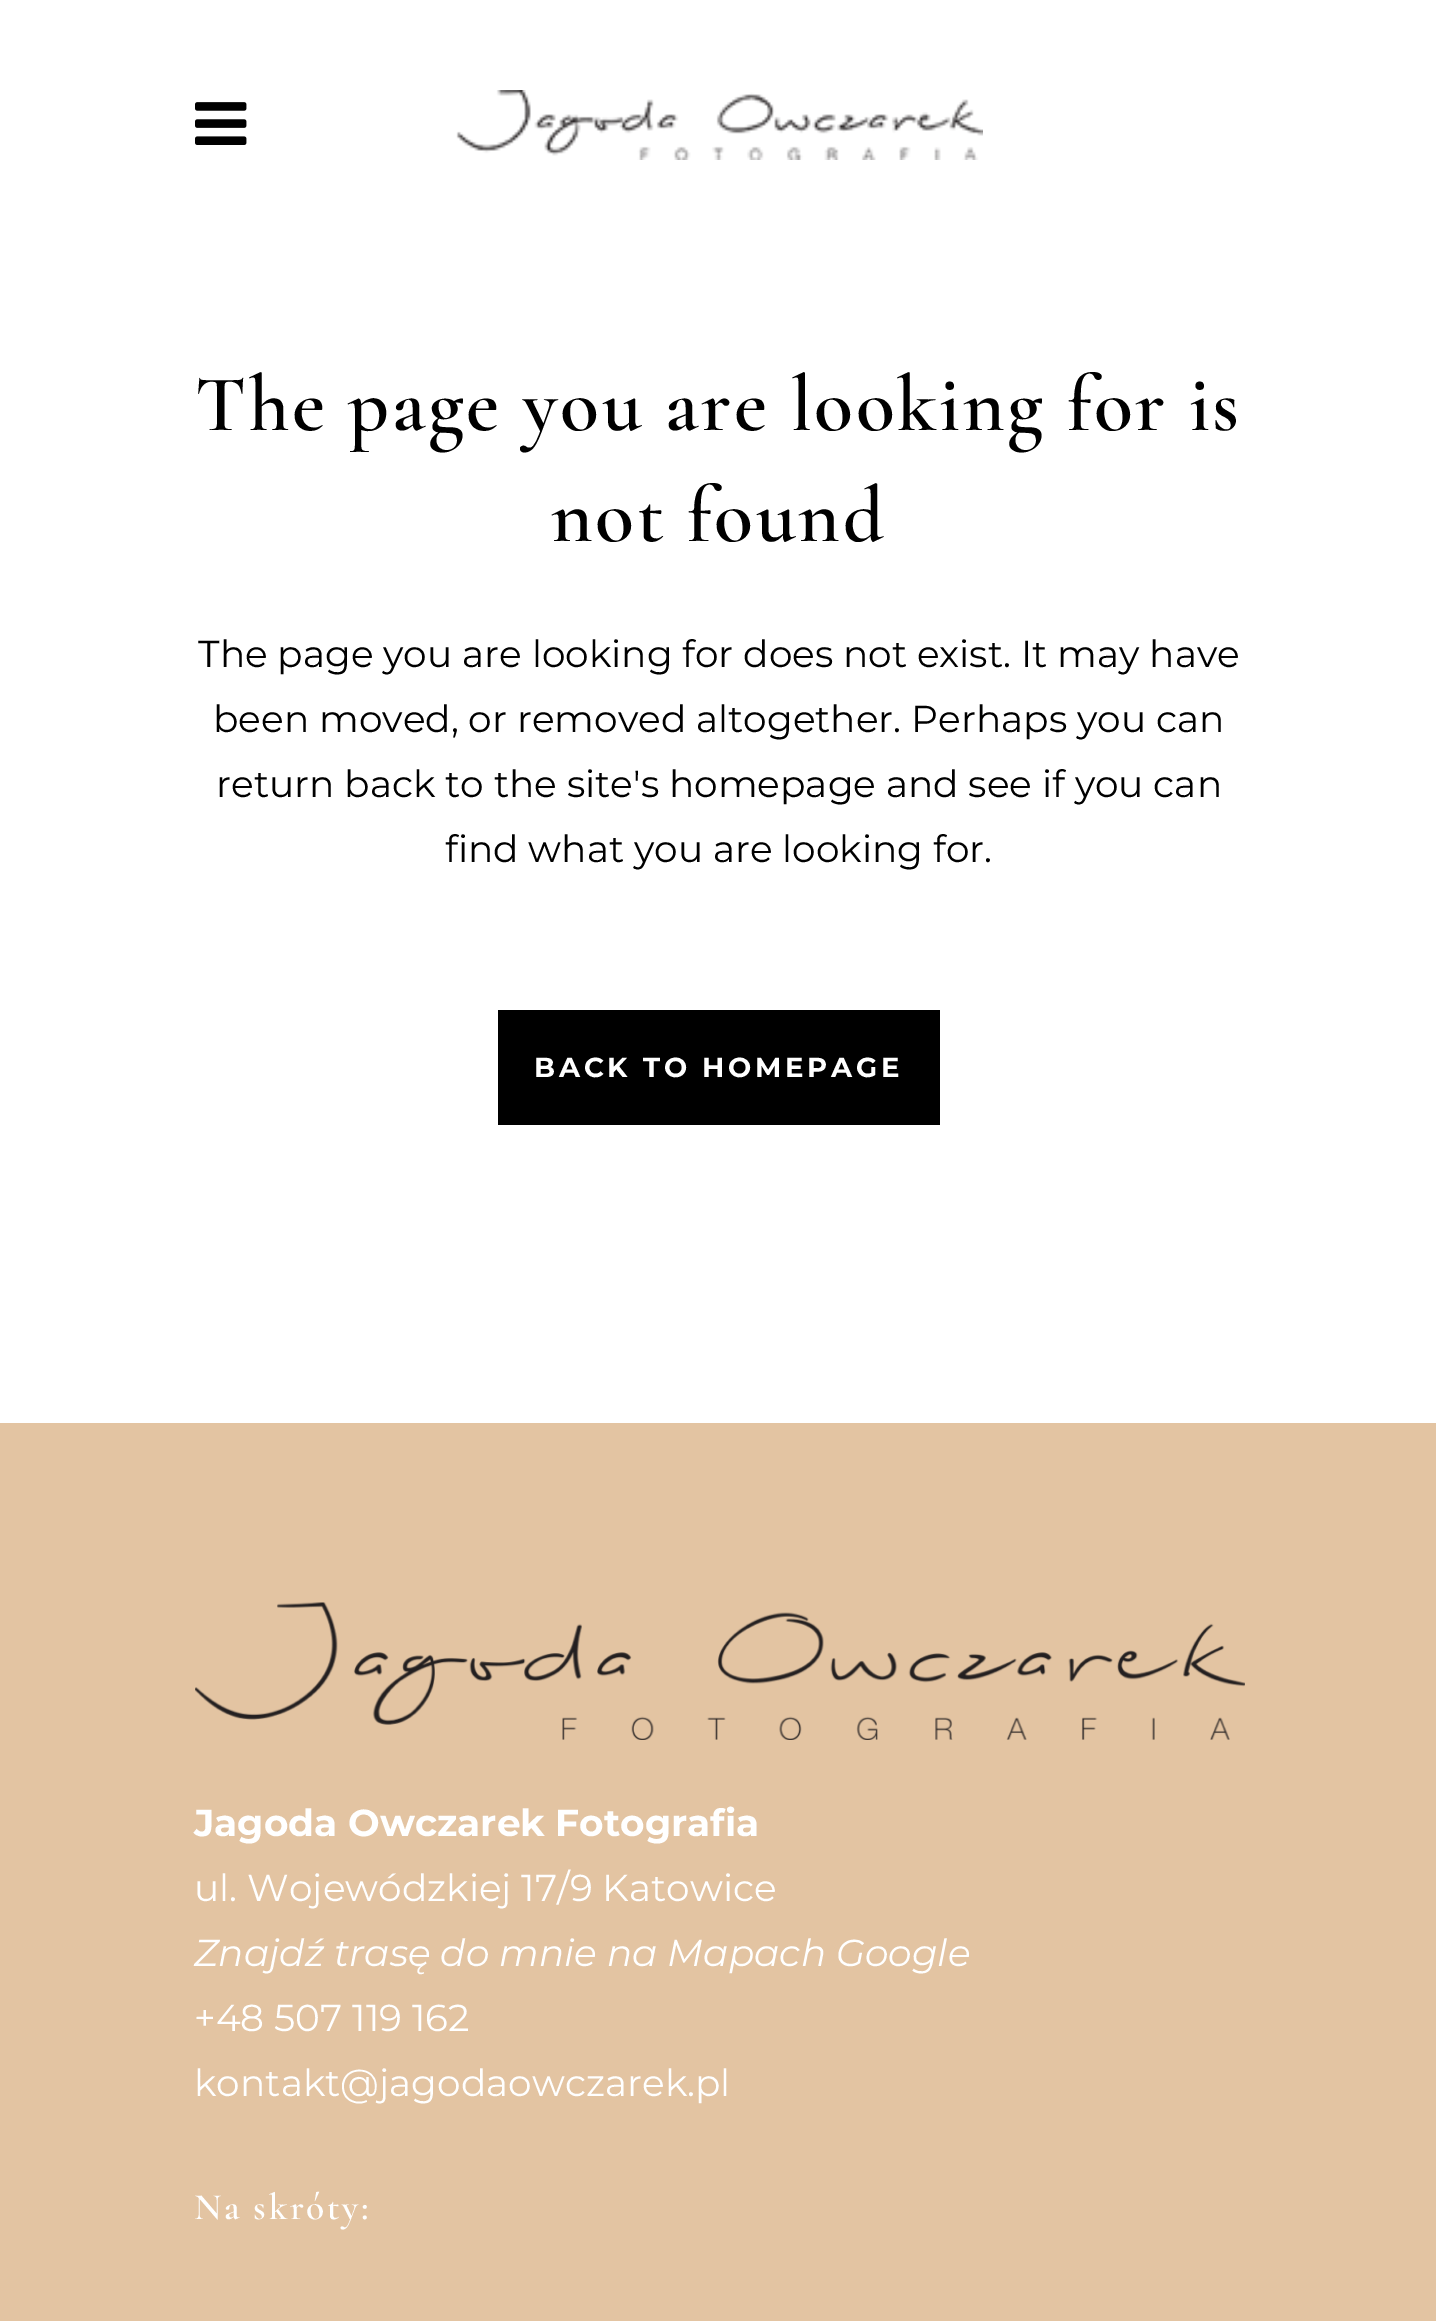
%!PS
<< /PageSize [1436 2321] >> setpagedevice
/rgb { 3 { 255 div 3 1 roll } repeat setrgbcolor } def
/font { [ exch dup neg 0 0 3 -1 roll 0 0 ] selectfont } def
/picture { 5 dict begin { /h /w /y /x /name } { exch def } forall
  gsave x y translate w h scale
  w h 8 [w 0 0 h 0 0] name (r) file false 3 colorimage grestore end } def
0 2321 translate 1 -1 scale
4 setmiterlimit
255 255 255 rgb
0 0 1436 2321 rectfill
(img/1.rgb) 195 102 52 43 picture
(img/2.rgb) 456 90 527 70 picture
0 0 0 rgb
498 1010 442 115 rectfill
227 196 162 rgb
0 1423 1436 898 rectfill
(img/3.rgb) 195 1602 1050 138 picture
/CormorantGaramond-SemiBold 80 font
0 0 0 rgb
195 430 moveto 2.5 0 (The page you are looking for is) ashow
551 541 moveto 2.5 0 (not found) ashow
/Montserrat-Regular 37.5 font
[
  [(The page you are looking for does not exist. It may have) 198 667]
  [(been moved, or removed altogether. Perhaps you can) 213 732]
  [(return back to the site's homepage and see if you can) 216 797]
  [(find what you are looking for.) 445 862]
] { aload pop moveto show } forall
/Montserrat-Bold 27.5 font
255 255 255 rgb
534 1077 moveto 3.75 0 (BACK TO HOMEPAGE) ashow
/Montserrat-Bold 37.5 font
194 1836 moveto (Jagoda Owczarek Fotografia) show
/Montserrat-Regular 37.5 font
194 1901 moveto (ul. Wojewódzkiej 17/9 Katowice) show
/Montserrat-Italic 37.5 font
194 1966 moveto (Znajdź trasę do mnie na Mapach Google) show
/Montserrat-Regular 37.5 font
194 2031 moveto (+48 507 119 162) show
194 2096 moveto (kontakt@jagodaowczarek.pl) show
/CormorantGaramond-SemiBold 37.5 font
194 2219 moveto 2.5 0 (Na skróty:) ashow
showpage
